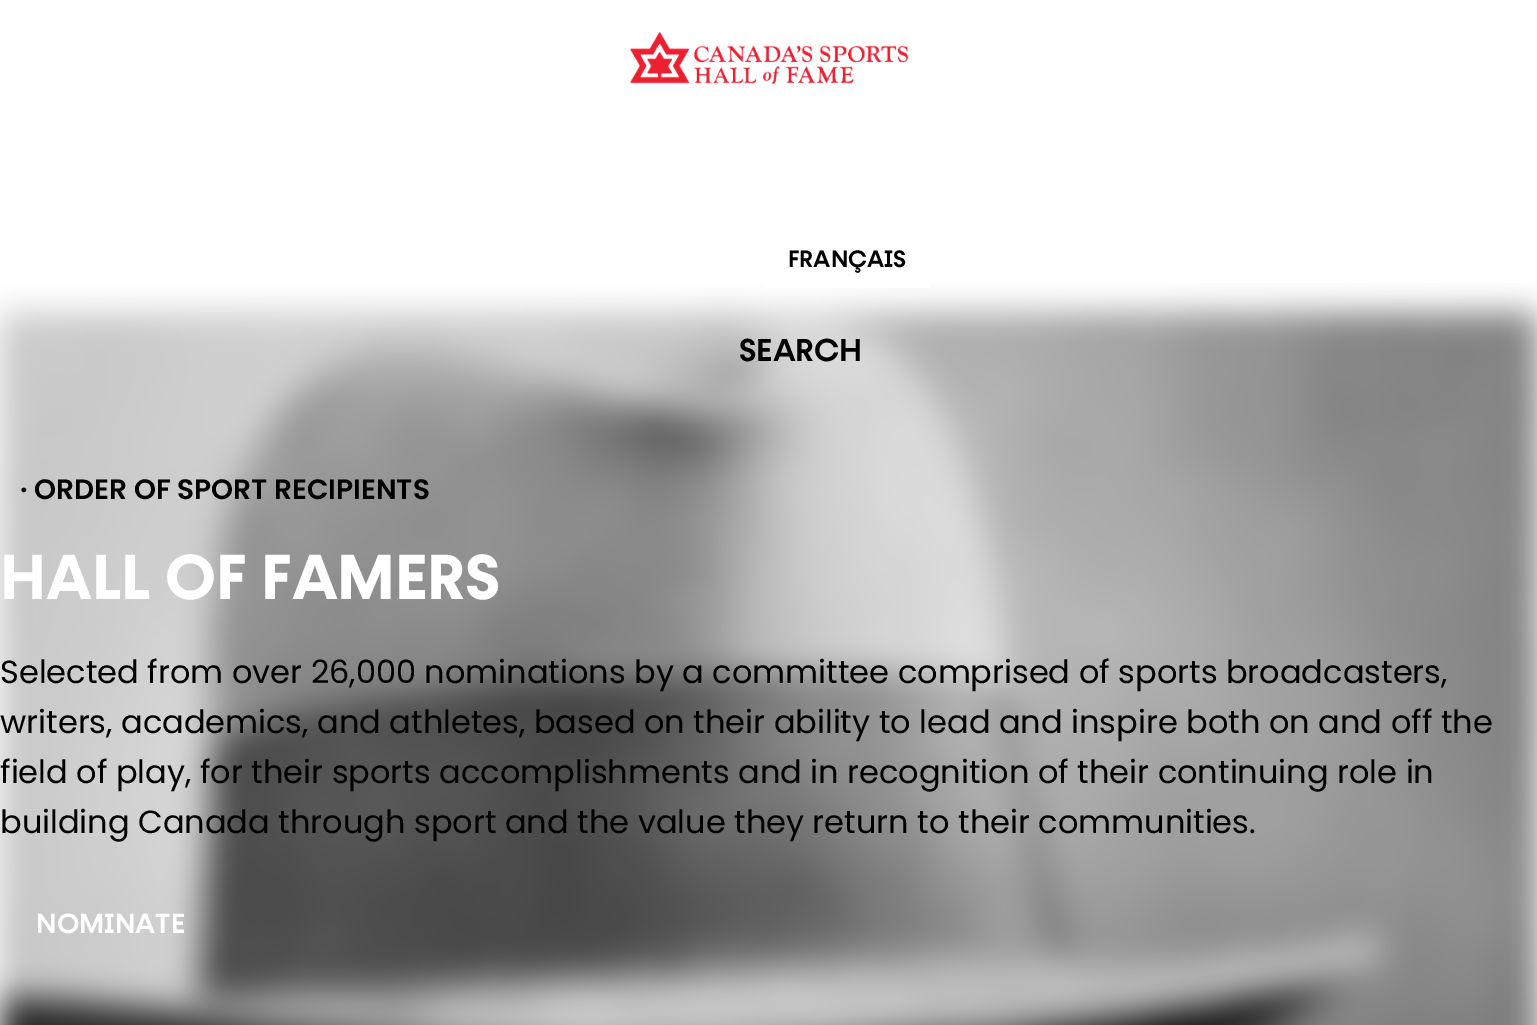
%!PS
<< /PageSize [1537 1025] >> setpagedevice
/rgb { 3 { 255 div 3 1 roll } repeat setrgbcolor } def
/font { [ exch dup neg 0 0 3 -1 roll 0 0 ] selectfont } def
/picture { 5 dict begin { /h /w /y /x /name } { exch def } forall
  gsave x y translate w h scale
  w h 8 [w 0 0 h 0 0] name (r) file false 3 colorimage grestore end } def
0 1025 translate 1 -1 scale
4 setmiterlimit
255 255 255 rgb
0 0 1537 1025 rectfill
(img/1.rgb) 630 32 279 53 picture
(img/2.rgb) 0 283 1537 742 picture
764 284 166 4 rectfill
/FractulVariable-SemiBold 24 font
0 0 0 rgb
788 267 moveto (FRANÇAIS) show
/FractulVariable-SemiBold 32 font
739 361 moveto (SEARCH) show
/Poppins-SemiBold 28 font
20 499 moveto (· ORDER OF SPORT RECIPIENTS) show
/FractulVariable-Bold 64 font
255 255 255 rgb
0 599 moveto (HALL OF FAMERS) show
/Poppins-Regular 32 font
0 0 0 rgb
[
  [(Selected from over 26,000 nominations by a committee comprised of sports broadcasters,) 0 683]
  [(writers, academics, and athletes, based on their ability to lead and inspire both on and off the) 0 733]
  [(field of play, for their sports accomplishments and in recognition of their continuing role in) 0 783]
  [(building Canada through sport and the value they return to their communities.) 0 833]
] { aload pop moveto show } forall
/FractulVariable-SemiBold 28 font
255 255 255 rgb
36 933 moveto (NOMINATE) show
showpage
